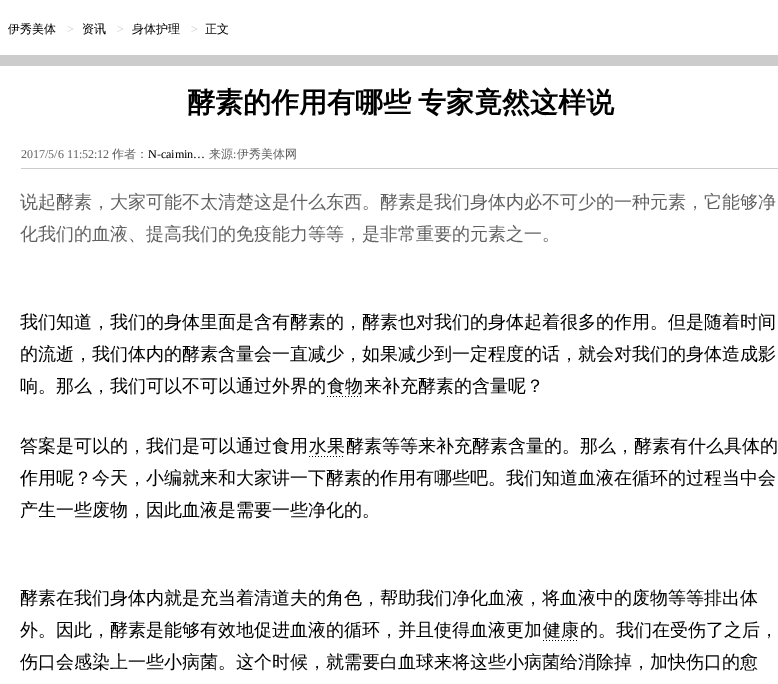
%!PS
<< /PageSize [778 684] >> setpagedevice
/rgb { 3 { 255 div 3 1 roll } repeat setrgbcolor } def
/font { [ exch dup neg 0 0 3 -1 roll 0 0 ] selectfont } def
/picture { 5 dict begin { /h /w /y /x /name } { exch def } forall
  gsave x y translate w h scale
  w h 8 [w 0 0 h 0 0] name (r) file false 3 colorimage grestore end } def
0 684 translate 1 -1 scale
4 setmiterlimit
255 255 255 rgb
0 0 778 684 rectfill
204 204 204 rgb
0 55 778 11 rectfill
21 168 757 1 rectfill
(img/1.rgb) 327 396 34 1 picture
(img/1.rgb) 309 456 34 1 picture
(img/1.rgb) 543 640 34 1 picture
/WenQuanYiZenHei-Medium 12 font
0 0 0 rgb
8 33 moveto (伊秀美体) show
/LiberationSerif-Regular 12 font
204 204 204 rgb
67 33 moveto (>) show
/WenQuanYiZenHei-Medium 12 font
0 0 0 rgb
82 33 moveto (资讯) show
/LiberationSerif-Regular 12 font
204 204 204 rgb
117 33 moveto (>) show
/WenQuanYiZenHei-Medium 12 font
0 0 0 rgb
132 33 moveto (身体护理) show
/LiberationSerif-Regular 12 font
204 204 204 rgb
191 33 moveto (>) show
/WenQuanYiZenHei-Medium 12 font
0 0 0 rgb
205 33 moveto (正文) show
/WenQuanYiZenHei-Bold 28 font
187 112 moveto (酵素的作用有哪些) show
418 112 moveto (专家竟然这样说) show
/LiberationSerif-Regular 12 font
97 97 97 rgb
21 158 moveto (2017/5/6 11:52:12) show
/WenQuanYiZenHei-Medium 12 font
112 158 moveto (作者：) show
/LiberationSerif-Regular 12 font
0 0 0 rgb
148 158 moveto (N-caimin…) show
/WenQuanYiZenHei-Medium 12 font
97 97 97 rgb
209 158 moveto (来源 伊秀美体网) show
/LiberationSerif-Regular 12 font
233 158 moveto (:) show
/WenQuanYiZenHei-Medium 18 font
20 208 moveto (说起酵素，大家可能不太清楚这是什么东西。酵素是我们身体内必不可少的一种元素，它能够净) show
20 240 moveto (化我们的血液、提高我们的免疫能力等等，是非常重要的元素之一。) show
0 0 0 rgb
[
  [(我们知道，我们的身体里面是含有酵素的，酵素也对我们的身体起着很多的作用。但是随着时间) 20 328]
  [(的流逝，我们体内的酵素含量会一直减少，如果减少到一定程度的话，就会对我们的身体造成影) 20 360]
  [(响。那么，我们可以不可以通过外界的) 20 392]
  [(食物) 327 392]
  [(来补充酵素的含量呢？) 364 392]
  [(答案是可以的，我们是可以通过食用) 20 452]
  [(水果) 309 452]
  [(酵素等等来补充酵素含量的。那么，酵素有什么具体的) 346 452]
  [(作用呢？今天，小编就来和大家讲一下酵素的作用有哪些吧。我们知道血液在循环的过程当中会) 20 484]
  [(产生一些废物，因此血液是需要一些净化的。) 20 516]
  [(酵素在我们身体内就是充当着清道夫的角色，帮助我们净化血液，将血液中的废物等等排出体) 20 604]
  [(外。因此，酵素是能够有效地促进血液的循环，并且使得血液更加) 20 636]
  [(健康) 543 636]
  [(的。我们在受伤了之后，) 580 636]
  [(伤口会感染上一些小病菌。这个时候，就需要白血球来将这些小病菌给消除掉，加快伤口的愈) 20 668]
] { aload pop moveto show } forall
showpage
